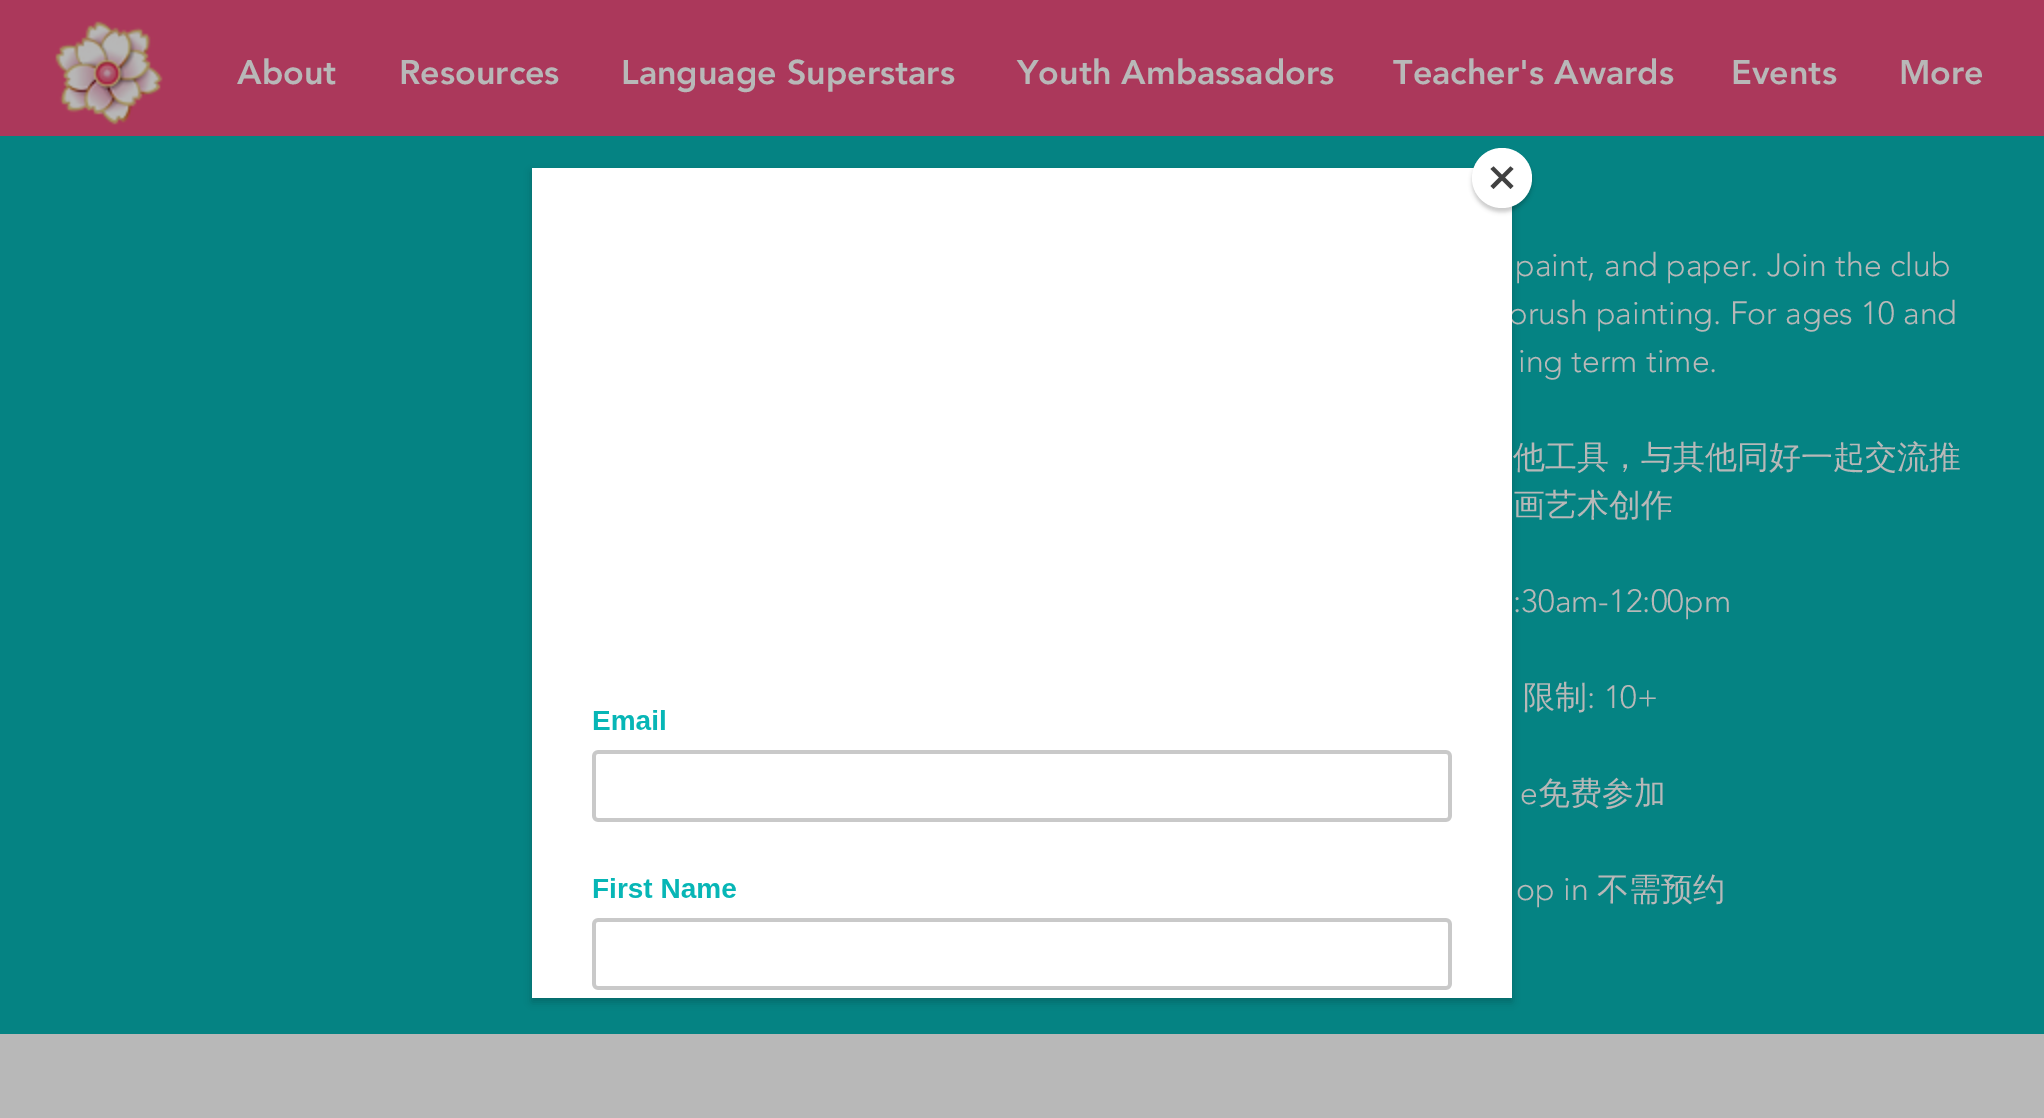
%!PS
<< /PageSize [2044 1118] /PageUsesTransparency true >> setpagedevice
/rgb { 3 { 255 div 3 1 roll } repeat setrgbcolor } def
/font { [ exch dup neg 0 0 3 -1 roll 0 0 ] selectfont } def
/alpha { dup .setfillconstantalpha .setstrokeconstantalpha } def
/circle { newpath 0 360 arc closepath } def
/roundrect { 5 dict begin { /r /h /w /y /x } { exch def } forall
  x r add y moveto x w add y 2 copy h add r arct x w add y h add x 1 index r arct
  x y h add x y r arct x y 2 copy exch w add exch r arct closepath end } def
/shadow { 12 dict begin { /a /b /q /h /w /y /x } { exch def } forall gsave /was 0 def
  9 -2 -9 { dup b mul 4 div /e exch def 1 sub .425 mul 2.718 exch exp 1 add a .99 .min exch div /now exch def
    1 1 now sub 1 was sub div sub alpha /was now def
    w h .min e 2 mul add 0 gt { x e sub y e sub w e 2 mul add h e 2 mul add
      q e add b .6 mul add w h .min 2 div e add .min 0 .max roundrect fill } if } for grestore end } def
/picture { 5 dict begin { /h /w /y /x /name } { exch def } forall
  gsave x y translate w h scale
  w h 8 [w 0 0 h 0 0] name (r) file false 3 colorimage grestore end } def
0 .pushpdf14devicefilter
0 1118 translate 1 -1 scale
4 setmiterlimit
184 184 184 rgb
0 0 2044 1118 rectfill
171 56 91 rgb
0 0 2044 136 rectfill
(img/1.rgb) 55 21 108 104 picture
5 131 131 rgb
0 136 2044 898 rectfill
0 0 0 rgb
532 172 980 830 0 4 0.2 shadow
/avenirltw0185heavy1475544-Black 34 font
184 184 184 rgb
[
  [(About) 237 84]
  [(Resources) 399 84]
  [(Language Superstars) 621 84]
  [(Youth Ambassadors) 1017 84]
  [(Teacher's Awards) 1393 84]
  [(Events) 1731 84]
  [(More) 1899 84]
] { aload pop moveto show } forall
/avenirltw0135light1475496-Light 32 font
[
  [(paint, and paper. Join the club) 1515 276]
  [(brush painting. For ages 10 and) 1508 324]
  [(ing term time.) 1518 372]
] { aload pop moveto show } forall
/WenQuanYiZenHei-Medium 32 font
1513 468 moveto (他工具，与其他同好一起交流推) show
1513 516 moveto (画艺术创作) show
/avenirltw0135light1475496-Light 32 font
1513 612 moveto (:30am-12:00pm) show
/WenQuanYiZenHei-Medium 32 font
1523 708 moveto (限制) show
/avenirltw0135light1475496-Light 32 font
1587 708 moveto (: 10+) show
1520 804 moveto (e) show
/WenQuanYiZenHei-Medium 32 font
1538 804 moveto (免费参加) show
/avenirltw0135light1475496-Light 32 font
1516 900 moveto (op in) show
/WenQuanYiZenHei-Medium 32 font
1597 900 moveto (不需预约) show
(img/2.rgb) 532 168 980 830 picture
0 0 0 rgb
1472 152 60 60 30 2 0.2 shadow
255 255 255 rgb
1502 178 30 circle fill
65 65 65 rgb
1510.5 166.5 moveto 1513.5 169 lineto 1493.5 189 lineto 1490.5 186 lineto closepath fill
1490.5 169 moveto 1493.5 166.5 lineto 1513.5 186 lineto 1510.5 189 lineto closepath fill
.poppdf14devicefilter showpage
